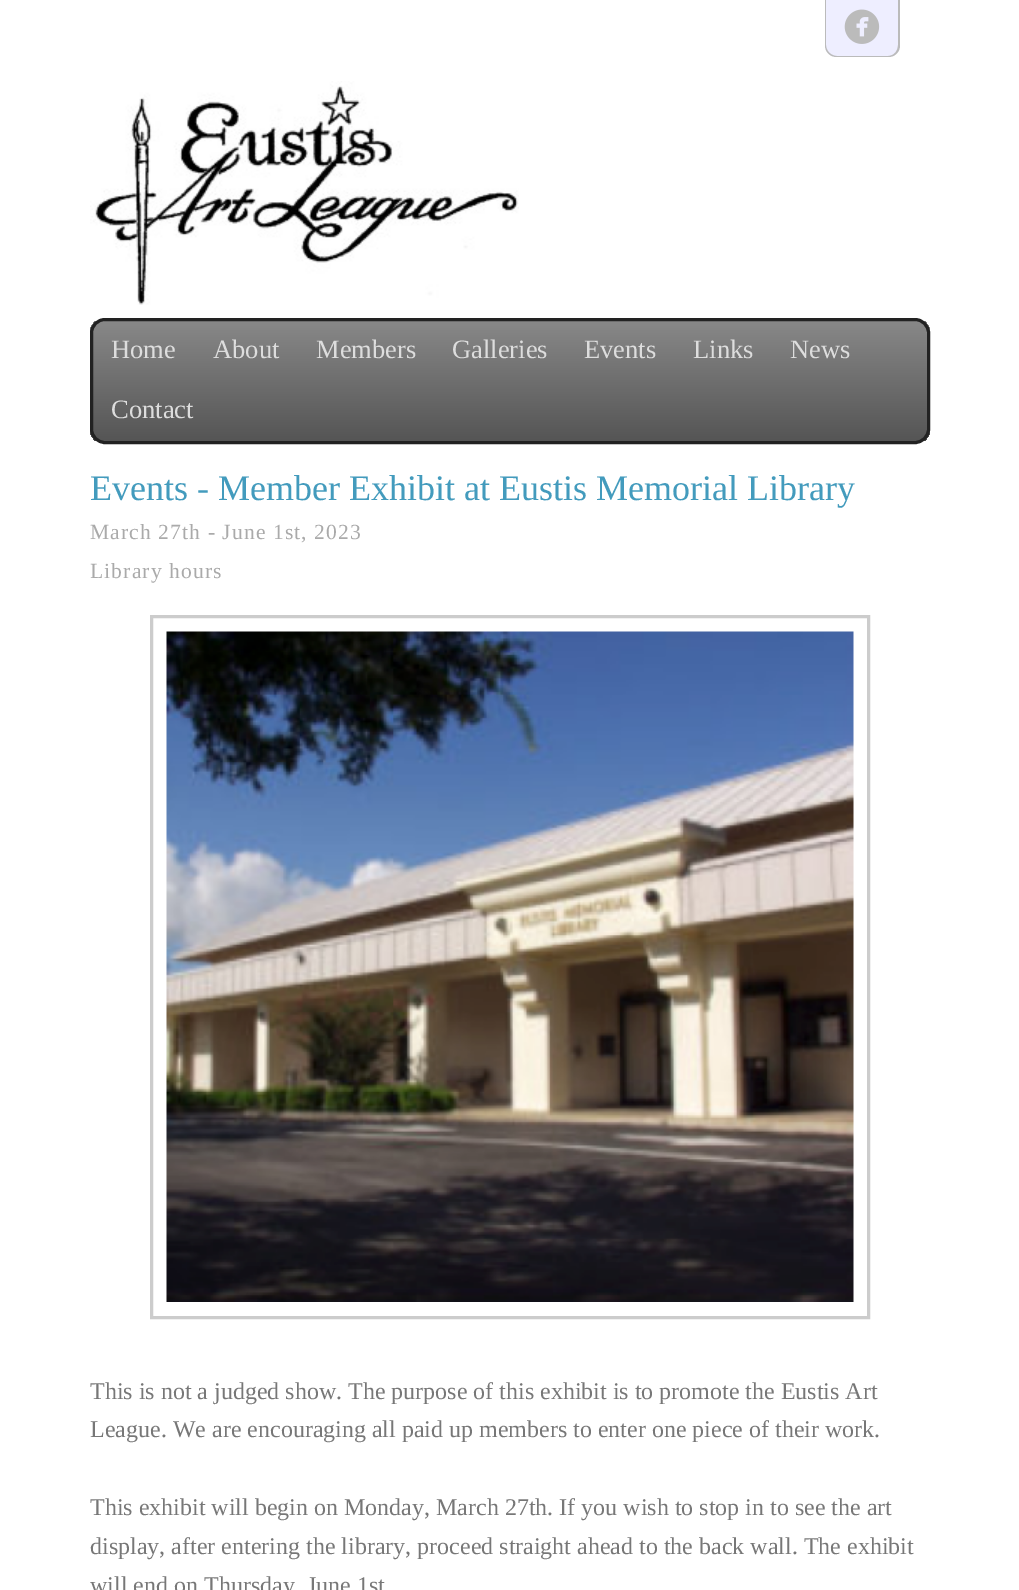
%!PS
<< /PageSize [1019 1590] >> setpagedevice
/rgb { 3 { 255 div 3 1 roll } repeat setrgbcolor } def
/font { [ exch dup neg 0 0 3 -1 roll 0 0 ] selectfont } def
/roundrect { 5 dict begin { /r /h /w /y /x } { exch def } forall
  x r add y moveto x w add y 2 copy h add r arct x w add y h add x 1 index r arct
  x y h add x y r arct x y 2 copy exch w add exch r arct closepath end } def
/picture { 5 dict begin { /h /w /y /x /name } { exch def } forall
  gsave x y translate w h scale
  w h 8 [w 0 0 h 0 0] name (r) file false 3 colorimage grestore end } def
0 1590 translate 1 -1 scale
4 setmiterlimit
255 255 255 rgb
0 0 1019 1590 rectfill
238 238 255 rgb
825 0 moveto 900 0 lineto 900 45 lineto 900 51.5 894.5 57 888 57 curveto 837 57 lineto 830.5 57 825 51.5 825 45 curveto closepath fill
187 187 187 rgb
825 0 moveto 900 0 lineto 900 45 lineto 900 52 895 57 888 57 curveto 837 57 lineto 830 57 825 52 825 45 curveto closepath 826 0 moveto 898 0 lineto 898 45 lineto 898 51 894 56 888 56 curveto 837 56 lineto 831 56 826 51 826 45 curveto closepath eofill
(img/1.rgb) 844 9 36 35 picture
(img/2.rgb) 90 81 429 224 picture
gsave
90 318 840 126 15 roundrect clip newpath
gsave 90 321 moveto 930 321 lineto 930 441 lineto 90 441 lineto closepath clip newpath
<< /ShadingType 2 /ColorSpace /DeviceRGB /Coords [510 321 510 441] /Extend [true true] /Function << /FunctionType 2 /Domain [0 1] /C0 [0.533 0.533 0.533] /C1 [0.333 0.333 0.333] /N 1 >> >> shfill grestore
grestore
34 34 34 rgb
3 setlinewidth
91.5 319.5 837 123 13.5 roundrect stroke
204 204 204 rgb
151.5 616.5 717 701 rectstroke
(img/3.rgb) 166 631 688 671 picture
/LiberationSerif-Regular 26.5 font
221 221 221 rgb
[
  [(Home) 111 358]
  [(About) 213 358]
  [(Members) 316 358]
  [(Galleries) 452 358]
  [(Events) 584 358]
  [(Links) 693 358]
  [(News) 790 358]
  [(Contact) 111 418]
] { aload pop moveto show } forall
/LiberationSerif-Regular 36 font
67 155 189 rgb
90 500 moveto (Events - Member Exhibit at Eustis Memorial Library) show
/LiberationSerif-Regular 21.6 font
170 170 170 rgb
90 539 moveto 1.1 0 (March 27th - June 1st, 2023) ashow
90 578 moveto 1.1 0 (Library hours) ashow
/LiberationSerif-Regular 24 font
119 119 119 rgb
[
  [(This is not a judged show. The purpose of this exhibit is to promote the Eustis Art) 90 1399]
  [(League. We are encouraging all paid up members to enter one piece of their work.) 90 1437]
  [(This exhibit will begin on Monday, March 27th. If you wish to stop in to see the art) 90 1515]
  [(display, after entering the library, proceed straight ahead to the back wall. The exhibit) 90 1554]
  [(will end on Thursday, June 1st) 90 1593]
] { aload pop moveto show } forall
showpage
